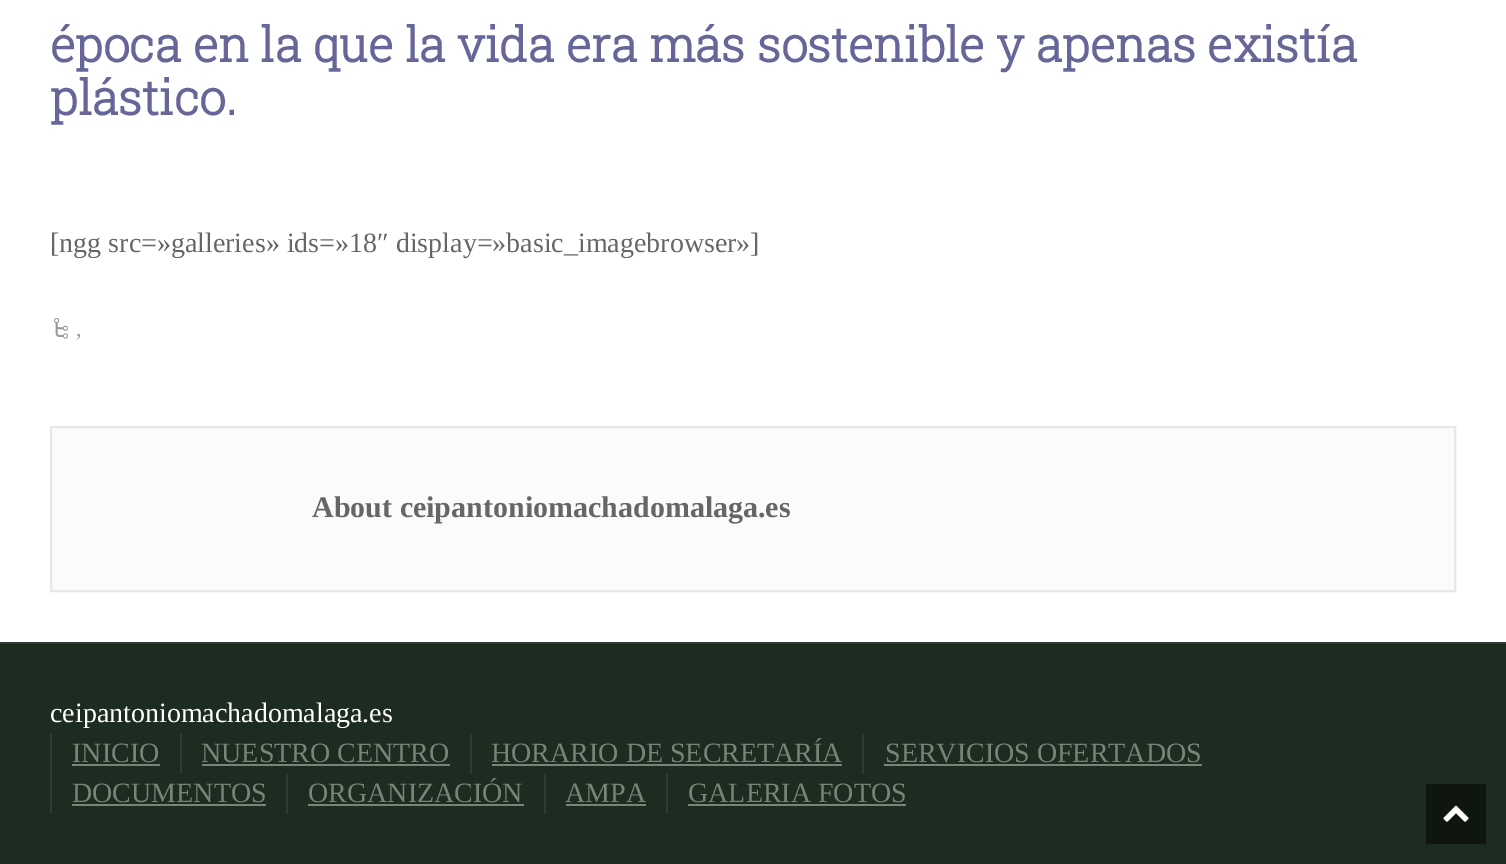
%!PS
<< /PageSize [1506 864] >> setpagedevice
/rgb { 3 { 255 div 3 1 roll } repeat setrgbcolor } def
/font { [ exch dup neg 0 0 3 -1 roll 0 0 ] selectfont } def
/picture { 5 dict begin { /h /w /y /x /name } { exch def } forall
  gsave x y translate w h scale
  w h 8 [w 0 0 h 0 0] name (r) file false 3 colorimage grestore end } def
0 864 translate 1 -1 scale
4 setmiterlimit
29 44 32 rgb
0 0 1506 864 rectfill
255 255 255 rgb
0 0 1506 642 rectfill
(img/1.rgb) 54 318 14 21 picture
251 251 251 rgb
51 427 moveto 1455 427 lineto 1455 591 lineto 51 591 lineto closepath gsave fill grestore
232 232 232 rgb
2 setlinewidth
stroke
[
  [0 642 1506 2 50 57 51]
  [50 734 2 80 50 57 51]
  [72 764 88 2 119 133 121]
  [180 734 2 40 50 57 51]
  [202 764 248 2 119 133 121]
  [470 734 2 40 50 57 51]
  [492 764 350 2 119 133 121]
  [862 734 2 40 50 57 51]
  [884 764 318 2 119 133 121]
  [72 804 194 2 119 133 121]
  [286 774 2 40 50 57 51]
  [308 804 216 2 119 133 121]
  [544 774 2 40 50 57 51]
  [566 804 80 2 119 133 121]
  [666 774 2 40 50 57 51]
  [688 804 218 2 119 133 121]
  [1426 784 60 60 15 22 16]
] { aload pop rgb rectfill } forall
(img/2.rgb) 1443 805 26 17 picture
/RobotoSlab-Bold 48 font
102 102 153 rgb
50 62 moveto (época en la que la vida era más sostenible y apenas existía) show
50 115 moveto (plástico.) show
/LiberationSerif-Regular 28 font
102 102 102 rgb
50 252 moveto ([ngg src=»galleries» ids=»18″ display=»basic_imagebrowser»]) show
/LiberationSerif-Regular 22 font
153 153 153 rgb
76 336 moveto (,) show
/LiberationSerif-Bold 30 font
102 102 102 rgb
312 517 moveto (About ceipantoniomachadomalaga.es) show
/LiberationSerif-Regular 28 font
255 255 255 rgb
50 722 moveto (ceipantoniomachadomalaga.es) show
119 133 121 rgb
[
  [(INICIO) 72 762]
  [(NUESTRO CENTRO) 201 762]
  [(HORARIO DE SECRETARÍA) 491 762]
  [(SERVICIOS OFERTADOS) 885 762]
  [(DOCUMENTOS) 72 802]
  [(ORGANIZACIÓN) 308 802]
  [(AMPA) 565 802]
  [(GALERIA FOTOS) 688 802]
] { aload pop moveto show } forall
showpage
